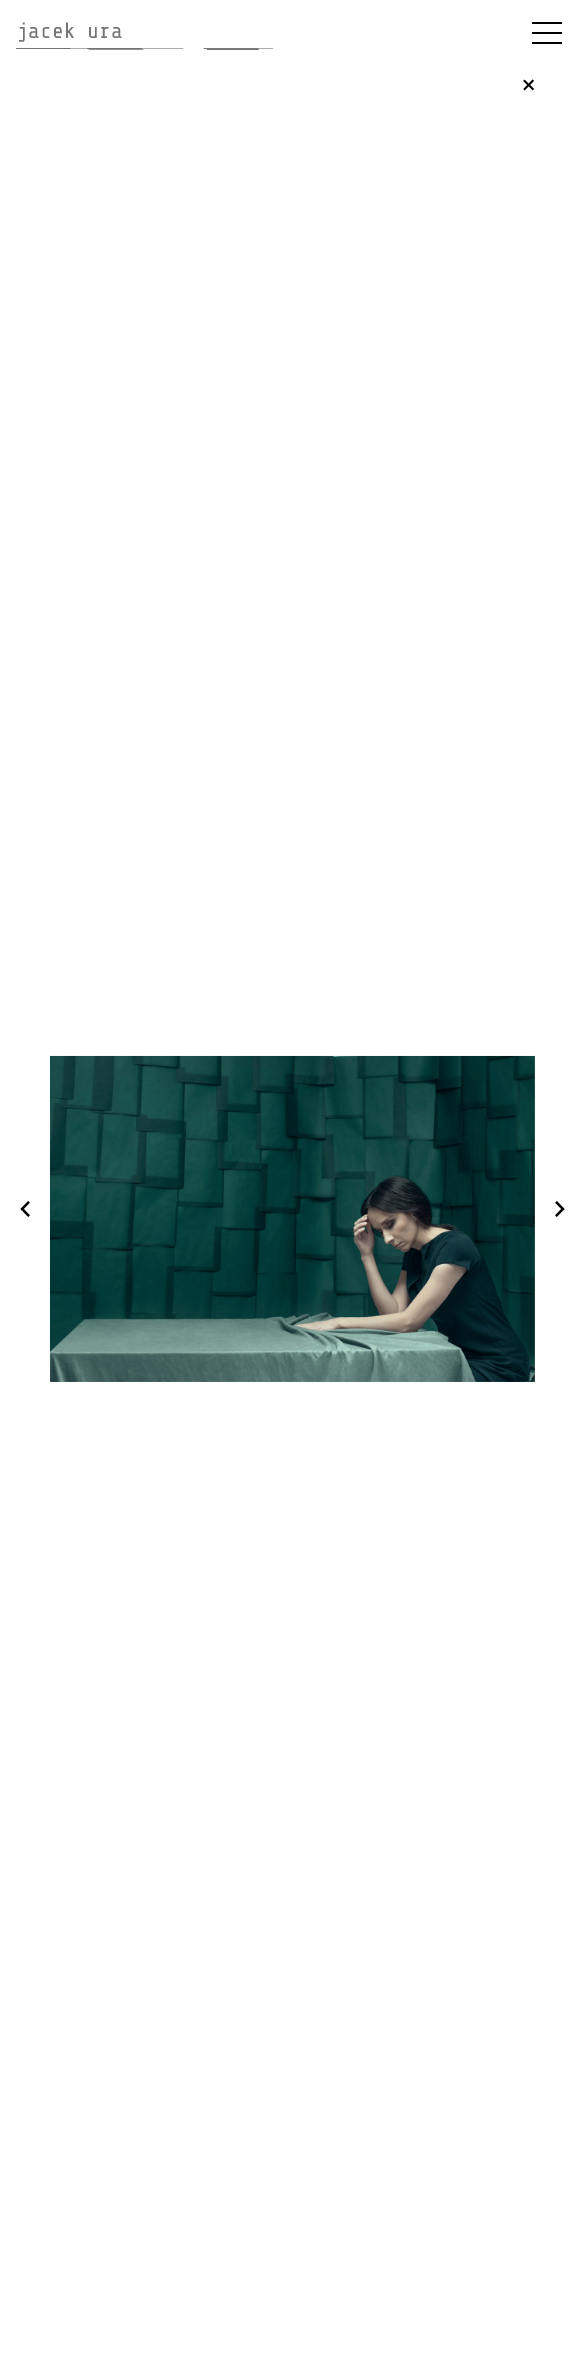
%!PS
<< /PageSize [585 2353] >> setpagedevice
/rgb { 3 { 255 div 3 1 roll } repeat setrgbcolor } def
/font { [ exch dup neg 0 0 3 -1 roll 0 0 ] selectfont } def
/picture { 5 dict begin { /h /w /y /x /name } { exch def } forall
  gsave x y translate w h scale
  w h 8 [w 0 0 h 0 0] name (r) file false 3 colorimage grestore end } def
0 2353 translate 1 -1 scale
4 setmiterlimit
255 255 255 rgb
0 0 585 2353 rectfill
(img/1.rgb) 16 48 257 2 picture
(img/2.rgb) 532 22 30 22 picture
(img/3.rgb) 523 79 12 12 picture
(img/4.rgb) 20 1201 10 16 picture
(img/5.rgb) 50 1055 485 327 picture
(img/6.rgb) 555 1201 10 16 picture
/ShareTechMono-Regular 22 font
117 117 117 rgb
16 38 moveto (jacek ura) show
showpage
